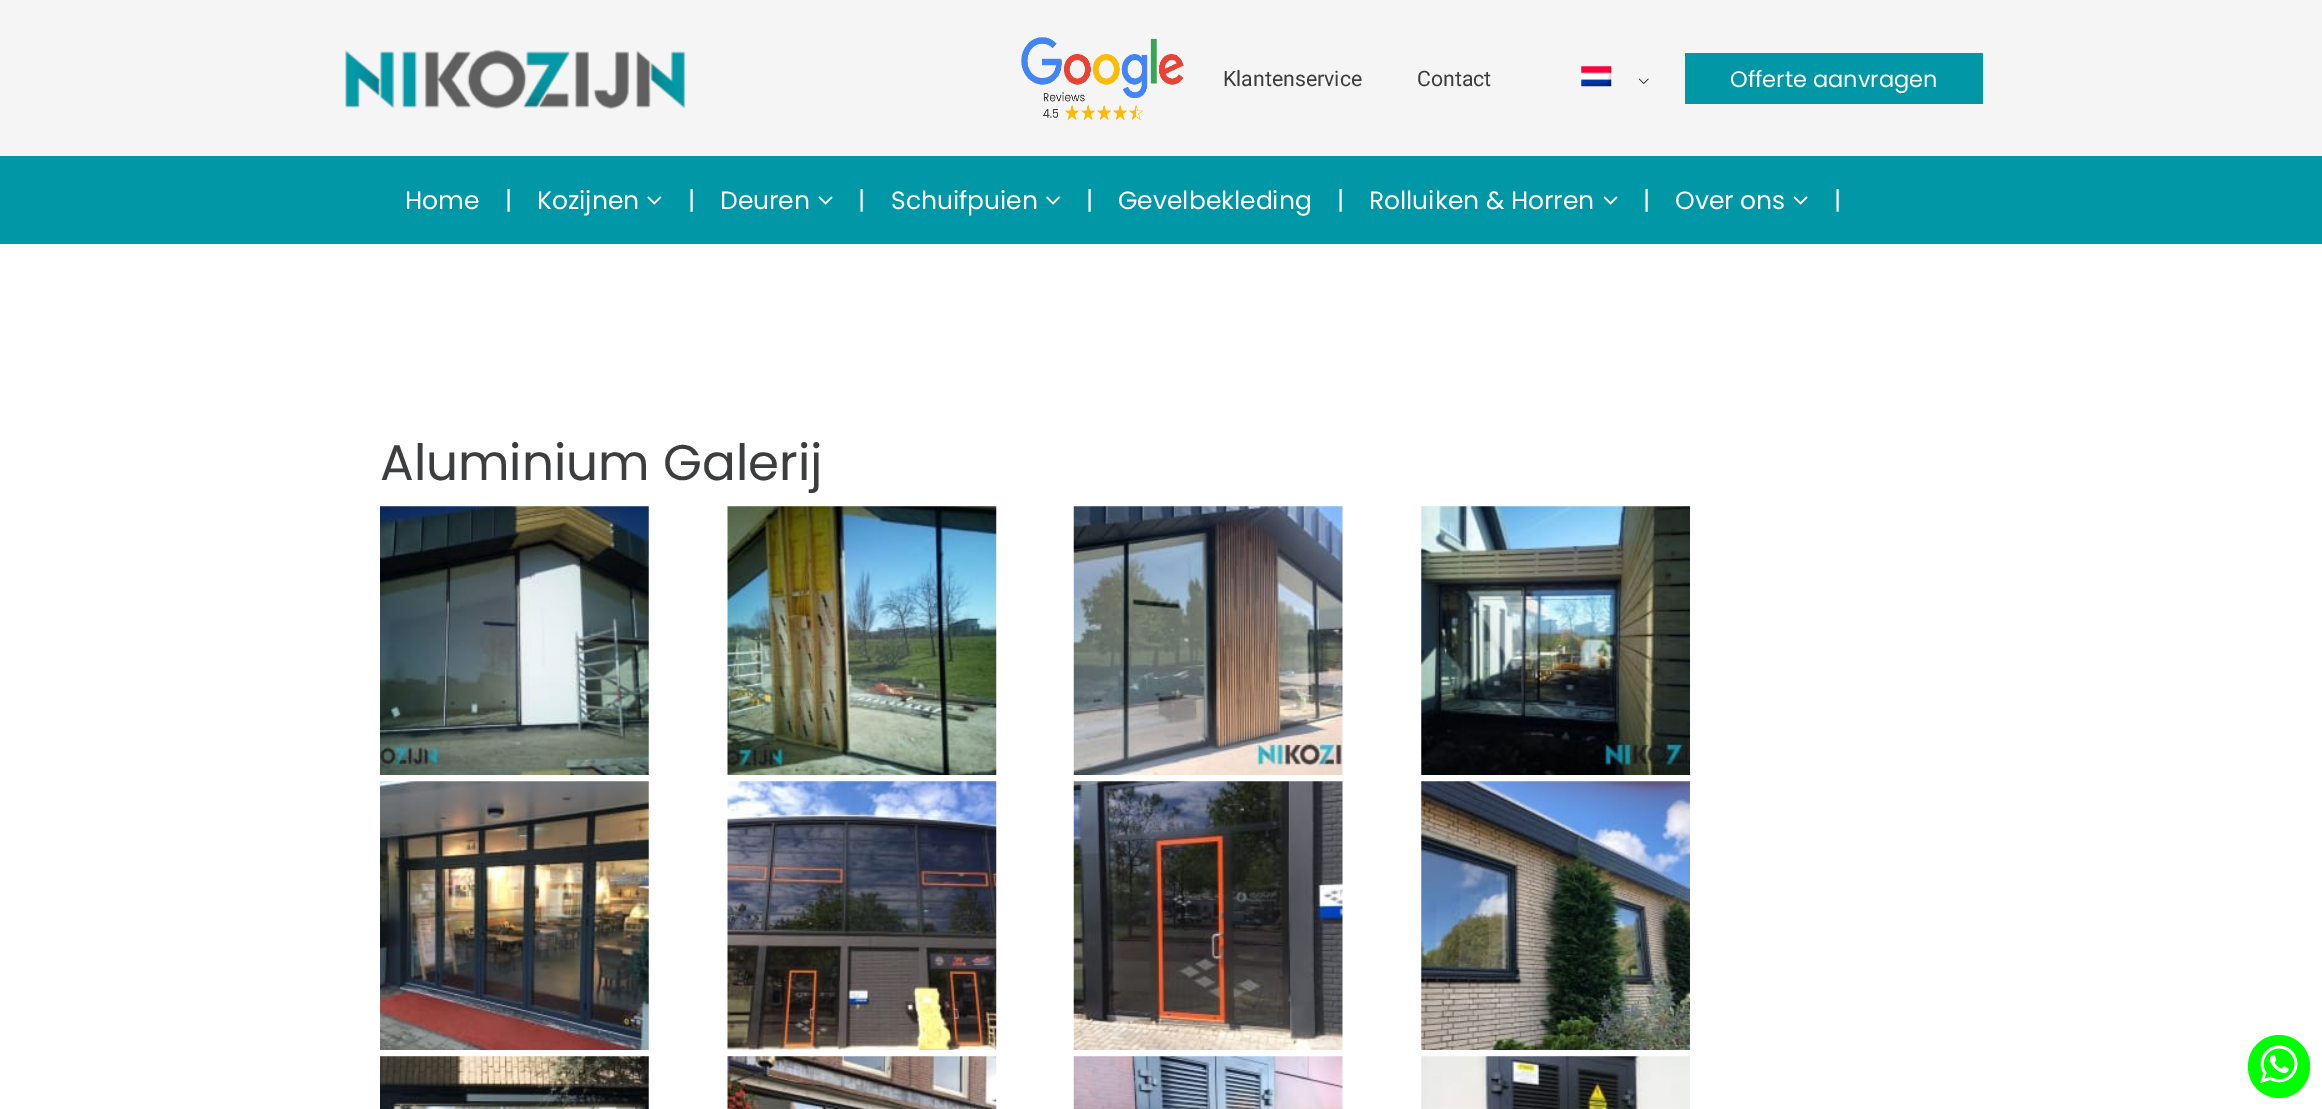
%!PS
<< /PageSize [2322 1109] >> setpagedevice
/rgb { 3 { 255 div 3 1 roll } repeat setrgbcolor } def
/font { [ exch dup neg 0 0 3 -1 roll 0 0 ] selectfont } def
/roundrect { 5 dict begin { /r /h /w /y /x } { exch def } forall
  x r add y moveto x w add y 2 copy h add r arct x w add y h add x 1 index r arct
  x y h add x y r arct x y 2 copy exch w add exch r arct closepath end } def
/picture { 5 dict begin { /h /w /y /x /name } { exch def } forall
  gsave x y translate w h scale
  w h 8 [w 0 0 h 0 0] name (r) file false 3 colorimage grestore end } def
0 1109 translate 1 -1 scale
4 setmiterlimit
255 255 255 rgb
0 0 2322 1109 rectfill
245 245 245 rgb
0 0 2322 156 rectfill
(img/1.rgb) 345 49 341 60 picture
(img/2.rgb) 1021 37 163 83 picture
(img/3.rgb) 1639 78 10 6 picture
(img/4.rgb) 1581 66 31 21 picture
0 152 167 rgb
1685 53 298 51 rectfill
0 156 2322 88 rectfill
(img/5.rgb) 647 196 15 9 picture
(img/6.rgb) 818 196 15 9 picture
(img/7.rgb) 1046 196 14 9 picture
(img/6.rgb) 1603 196 15 9 picture
(img/6.rgb) 1793 196 15 9 picture
(img/8.rgb) 380 506 269 269 picture
(img/9.rgb) 727 506 270 269 picture
(img/10.rgb) 1073 506 270 269 picture
(img/11.rgb) 1421 506 269 269 picture
(img/12.rgb) 380 781 269 269 picture
(img/13.rgb) 727 781 270 269 picture
(img/14.rgb) 1073 781 270 269 picture
(img/15.rgb) 1421 781 269 269 picture
(img/16.rgb) 380 1056 269 53 picture
(img/17.rgb) 727 1056 270 53 picture
(img/18.rgb) 1073 1056 270 53 picture
(img/19.rgb) 1421 1056 269 53 picture
0 255 0 rgb
2248 1035 62 63 31 roundrect fill
(img/20.rgb) 2260 1045 38 39 picture
/Roboto-Regular 21.25 font
60 61 63 rgb
1223 86 moveto (Klantenservice) show
1417 86 moveto (Contact) show
/Poppins-Regular 22.5 font
255 255 255 rgb
1730 87 moveto (Offerte aanvragen) show
/Poppins-Regular 25 font
[
  [(Home) 405 209]
  [(|) 505 209]
  [(Kozijnen) 537 209]
  [(|) 688 209]
  [(Deuren) 720 209]
  [(|) 858 209]
  [(Schuifpuien) 891 209]
  [(|) 1086 209]
  [(Gevelbekleding) 1118 209]
  [(|) 1337 209]
  [(Rolluiken & Horren) 1369 209]
  [(|) 1643 209]
  [(Over ons) 1675 209]
  [(|) 1834 209]
] { aload pop moveto show } forall
/Poppins-Regular 50 font
60 61 63 rgb
380 480 moveto (Aluminium Galerij) show
showpage
